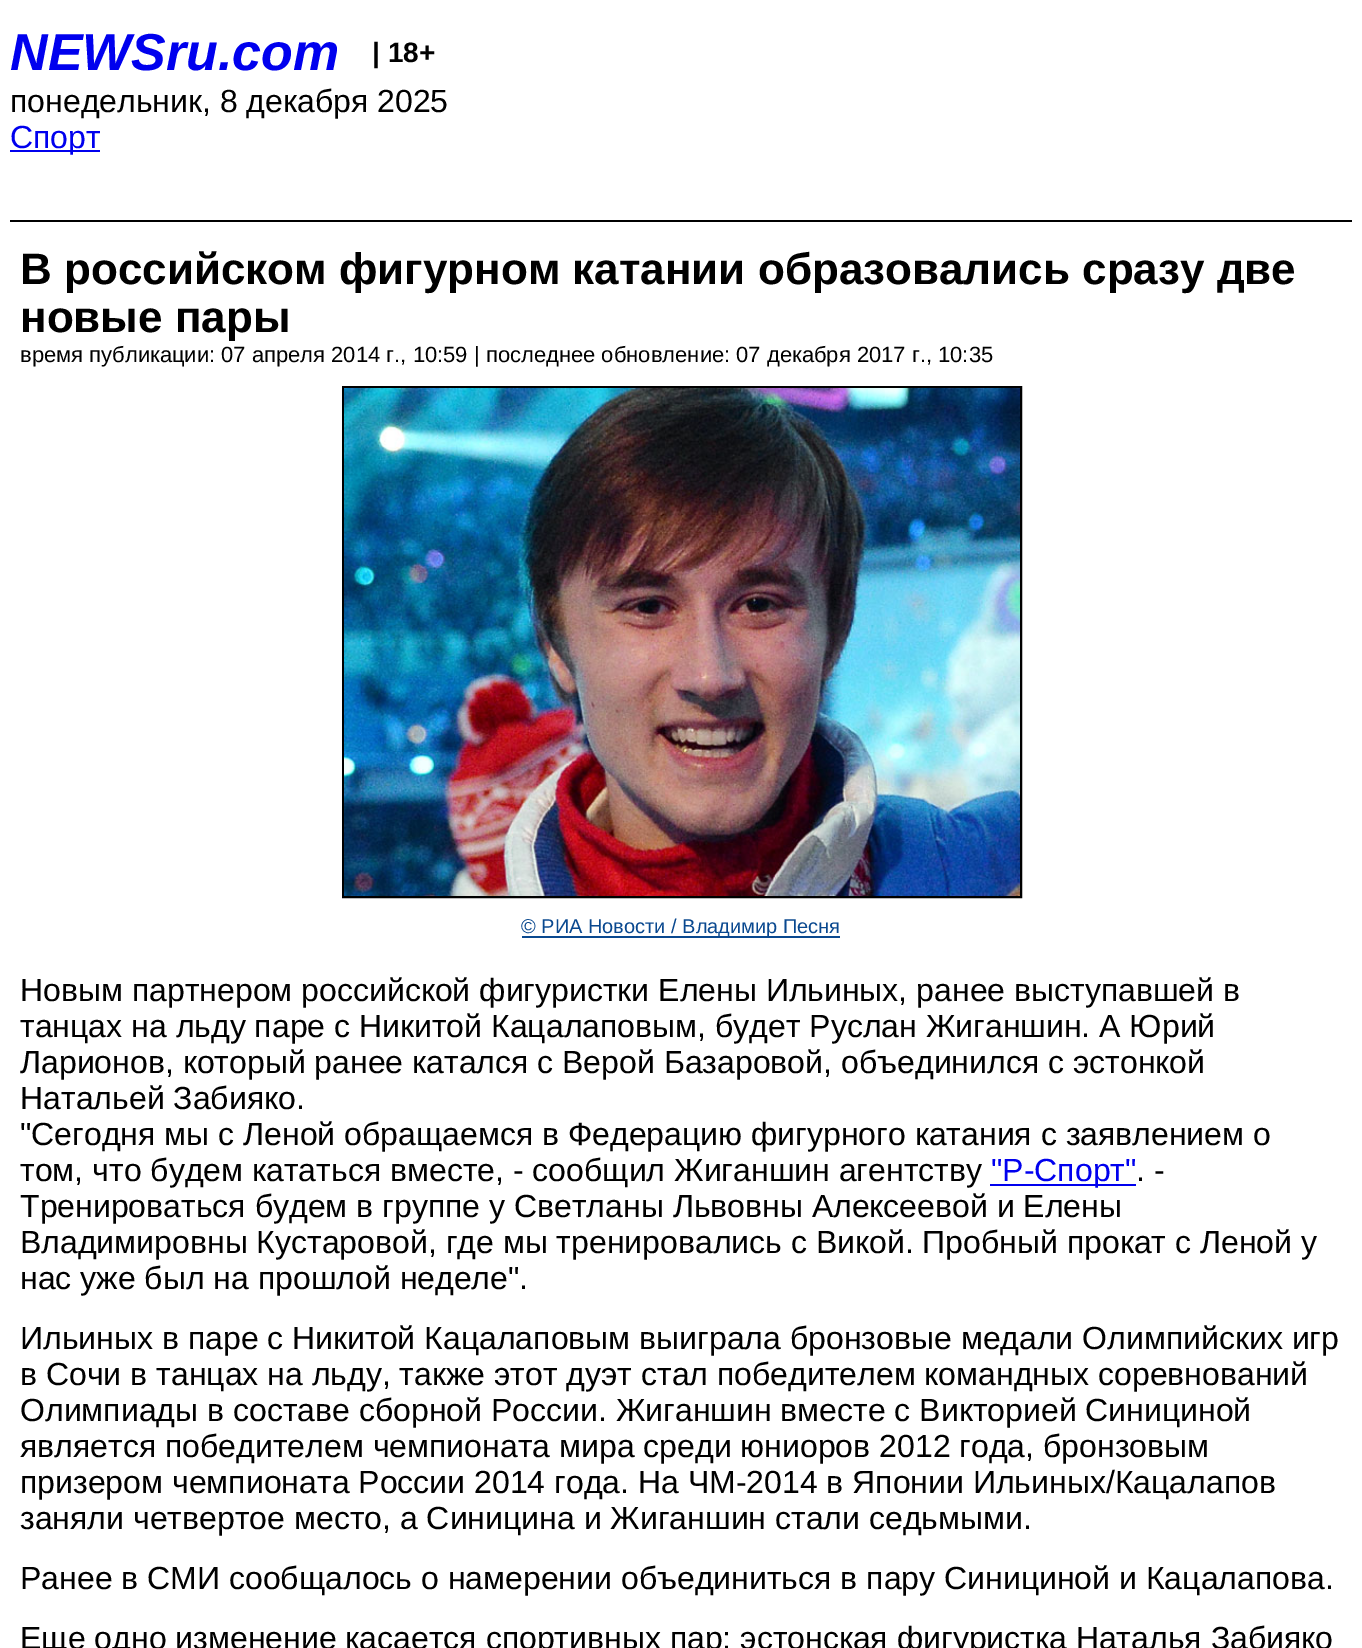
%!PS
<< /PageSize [1362 1648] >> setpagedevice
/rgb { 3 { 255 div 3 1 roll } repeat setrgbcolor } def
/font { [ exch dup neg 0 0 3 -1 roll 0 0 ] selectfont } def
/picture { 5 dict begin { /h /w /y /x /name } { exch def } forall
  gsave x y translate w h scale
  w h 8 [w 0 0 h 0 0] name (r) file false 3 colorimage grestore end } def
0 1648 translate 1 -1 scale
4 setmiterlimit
255 255 255 rgb
0 0 1362 1648 rectfill
0 0 0 rgb
10 220 1342 2 rectfill
0 0 238 rgb
10 150 90 2 rectfill
0 0 0 rgb
2 setlinewidth
343 387 678 510 rectstroke
(img/1.rgb) 344 388 676 508 picture
9 72 143 rgb
522 936 318 2 rectfill
0 0 238 rgb
990 1184 146 2 rectfill
/LiberationSans-BoldItalic 52 font
10 70 moveto (NEWSru.com) show
/LiberationSans-Bold 28 font
0 0 0 rgb
372 62 moveto (| 18+) show
/LiberationSans-Regular 32 font
10 112 moveto (понедельник, 8 декабря 2025) show
0 0 238 rgb
10 148 moveto (Спорт) show
/LiberationSans-Bold 44 font
0 0 0 rgb
20 284 moveto (В российском фигурном катании образовались сразу две) show
20 332 moveto (новые пары) show
/LiberationSans-Regular 22 font
20 362 moveto (время публикации: 07 апреля 2014 г., 10:59 | последнее обновление: 07 декабря 2017 г., 10:35) show
/LiberationSans-Regular 20 font
9 72 143 rgb
521 933 moveto (© РИА Новости / Владимир Песня) show
/LiberationSans-Regular 32 font
0 0 0 rgb
[
  [(Новым партнером российской фигуристки Елены Ильиных, ранее выступавшей в) 20 1001]
  [(танцах на льду паре с Никитой Кацалаповым, будет Руслан Жиганшин. А Юрий) 20 1037]
  [(Ларионов, который ранее катался с Верой Базаровой, объединился с эстонкой) 20 1073]
  [(Натальей Забияко.) 20 1109]
  [("Сегодня мы с Леной обращаемся в Федерацию фигурного катания с заявлением о) 20 1145]
  [(том, что будем кататься вместе, - сообщил Жиганшин агентству) 20 1181]
] { aload pop moveto show } forall
0 0 238 rgb
991 1181 moveto ("Р-Спорт") show
0 0 0 rgb
[
  [(. -) 1136 1181]
  [(Тренироваться будем в группе у Светланы Львовны Алексеевой и Елены) 20 1217]
  [(Владимировны Кустаровой, где мы тренировались с Викой. Пробный прокат с Леной у) 20 1253]
  [(нас уже был на прошлой неделе".) 20 1289]
  [(Ильиных в паре с Никитой Кацалаповым выиграла бронзовые медали Олимпийских игр) 20 1349]
  [(в Сочи в танцах на льду, также этот дуэт стал победителем командных соревнований) 20 1385]
  [(Олимпиады в составе сборной России. Жиганшин вместе с Викторией Синициной) 20 1421]
  [(является победителем чемпионата мира среди юниоров 2012 года, бронзовым) 20 1457]
  [(призером чемпионата России 2014 года. На ЧМ-2014 в Японии Ильиных/Кацалапов) 20 1493]
  [(заняли четвертое место, а Синицина и Жиганшин стали седьмыми.) 20 1529]
  [(Ранее в СМИ сообщалось о намерении объединиться в пару Синициной и Кацалапова.) 20 1589]
  [(Еще одно изменение касается спортивных пар: эстонская фигуристка Наталья Забияко) 20 1649]
] { aload pop moveto show } forall
showpage
